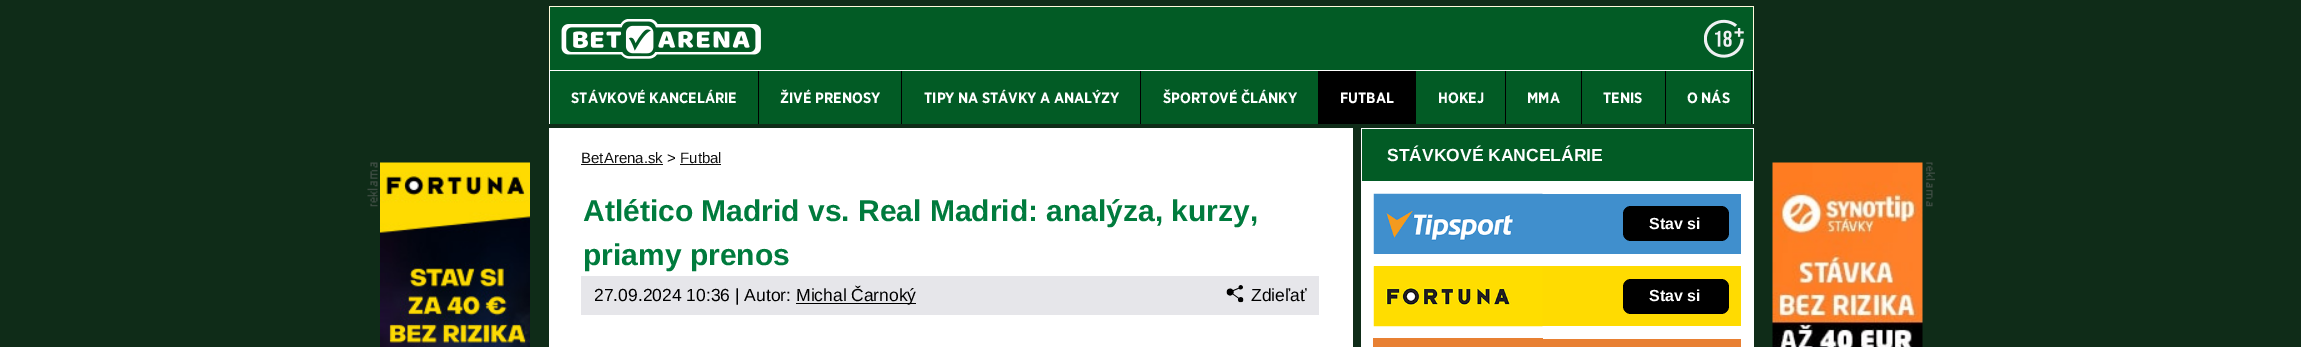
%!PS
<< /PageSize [2301 347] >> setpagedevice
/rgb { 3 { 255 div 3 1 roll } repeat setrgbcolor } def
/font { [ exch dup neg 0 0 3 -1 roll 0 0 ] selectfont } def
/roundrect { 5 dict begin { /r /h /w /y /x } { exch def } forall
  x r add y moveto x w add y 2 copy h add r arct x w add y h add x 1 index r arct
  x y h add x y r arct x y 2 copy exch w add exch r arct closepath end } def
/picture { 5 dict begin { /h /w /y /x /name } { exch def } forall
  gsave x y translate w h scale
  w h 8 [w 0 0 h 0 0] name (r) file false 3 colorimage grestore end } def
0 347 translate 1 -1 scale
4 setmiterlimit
15 44 24 rgb
0 0 2301 347 rectfill
[
  [550 7 1203 63 2 91 37]
  [549 6 1205 1 255 250 219]
  [1753 6 1 64 255 250 219]
  [549 6 1 64 255 250 219]
] { aload pop rgb rectfill } forall
(img/1.rgb) 561 19 200 40 picture
(img/2.rgb) 1704 19 40 39 picture
[
  [549 70 1205 1 255 255 255]
  [1753 70 1 54 255 255 255]
  [549 70 1 54 255 255 255]
  [550 71 1203 53 2 91 37]
  [758 71 1 53 0 0 0]
  [901 71 1 53 0 0 0]
  [1140 71 1 53 0 0 0]
  [1318 71 98 53 0 0 0]
  [1505 71 1 53 0 0 0]
  [1581 71 1 53 0 0 0]
  [1665 71 1 53 0 0 0]
  [1751 71 1 53 0 0 0]
] { aload pop rgb rectfill } forall
(img/3.rgb) 367 162 11 45 picture
(img/4.rgb) 380 162 150 185 picture
[
  [549 128 804 219 255 255 255]
  [581 164 82 1 17 17 17]
  [680 164 41 1 17 17 17]
  [581 276 738 39 230 230 234]
  [796 303 120 1 0 0 0]
] { aload pop rgb rectfill } forall
(img/5.rgb) 1226 285 18 18 picture
[
  [1361 181 393 166 255 255 255]
  [1362 129 391 52 2 91 37]
  [1361 128 393 1 255 255 255]
  [1753 128 1 53 255 255 255]
  [1361 128 1 53 255 255 255]
  [1374 194 367 60 64 143 205]
] { aload pop rgb rectfill } forall
(img/6.rgb) 1373 193 170 61 picture
0 0 0 rgb
1623 206 106 35 8 roundrect fill
255 219 1 rgb
1374 266 367 60 rectfill
(img/7.rgb) 1373 266 170 61 picture
0 0 0 rgb
1623 279 106 35 8 roundrect fill
232 128 51 rgb
1543 339 198 8 rectfill
1373 338 170 9 rectfill
(img/8.rgb) 1926 162 9 45 picture
(img/9.rgb) 1772 162 151 185 picture
/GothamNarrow-Bold 15 font
255 255 255 rgb
[
  [(STÁVKOVÉ KANCELÁRIE) 571 103]
  [(ŽIVÉ PRENOSY) 780 103]
  [(TIPY NA STÁVKY A ANALÝZY) 924 103]
  [(ŠPORTOVÉ ČLÁNKY) 1163 103]
  [(FUTBAL) 1340 103]
  [(HOKEJ) 1438 103]
  [(MMA) 1527 103]
  [(TENIS) 1603 103]
  [(O NÁS) 1687 103]
] { aload pop moveto show } forall
/LiberationSans-Regular 15 font
17 17 17 rgb
581 163 moveto (BetArena.sk) show
0 0 0 rgb
667 163 moveto (>) show
17 17 17 rgb
680 163 moveto (Futbal) show
/LiberationSans-Bold 30 font
0 123 61 rgb
583 221 moveto (Atlético Madrid vs. Real Madrid: analýza, kurzy,) show
583 265 moveto (priamy prenos) show
/LiberationSans-Regular 17.5 font
0 0 0 rgb
[
  [(27.09.2024 10:36 | Autor: Michal) 594 301]
  [(Čarnoký) 851 301]
  [(Zdieľať) 1251 301]
] { aload pop moveto show } forall
/LiberationSans-Bold 17.5 font
255 255 255 rgb
1387 161 moveto (STÁVKOVÉ KANCELÁRIE) show
/LiberationSans-Bold 16 font
1649 229 moveto (Stav si) show
1649 301 moveto (Stav si) show
showpage
